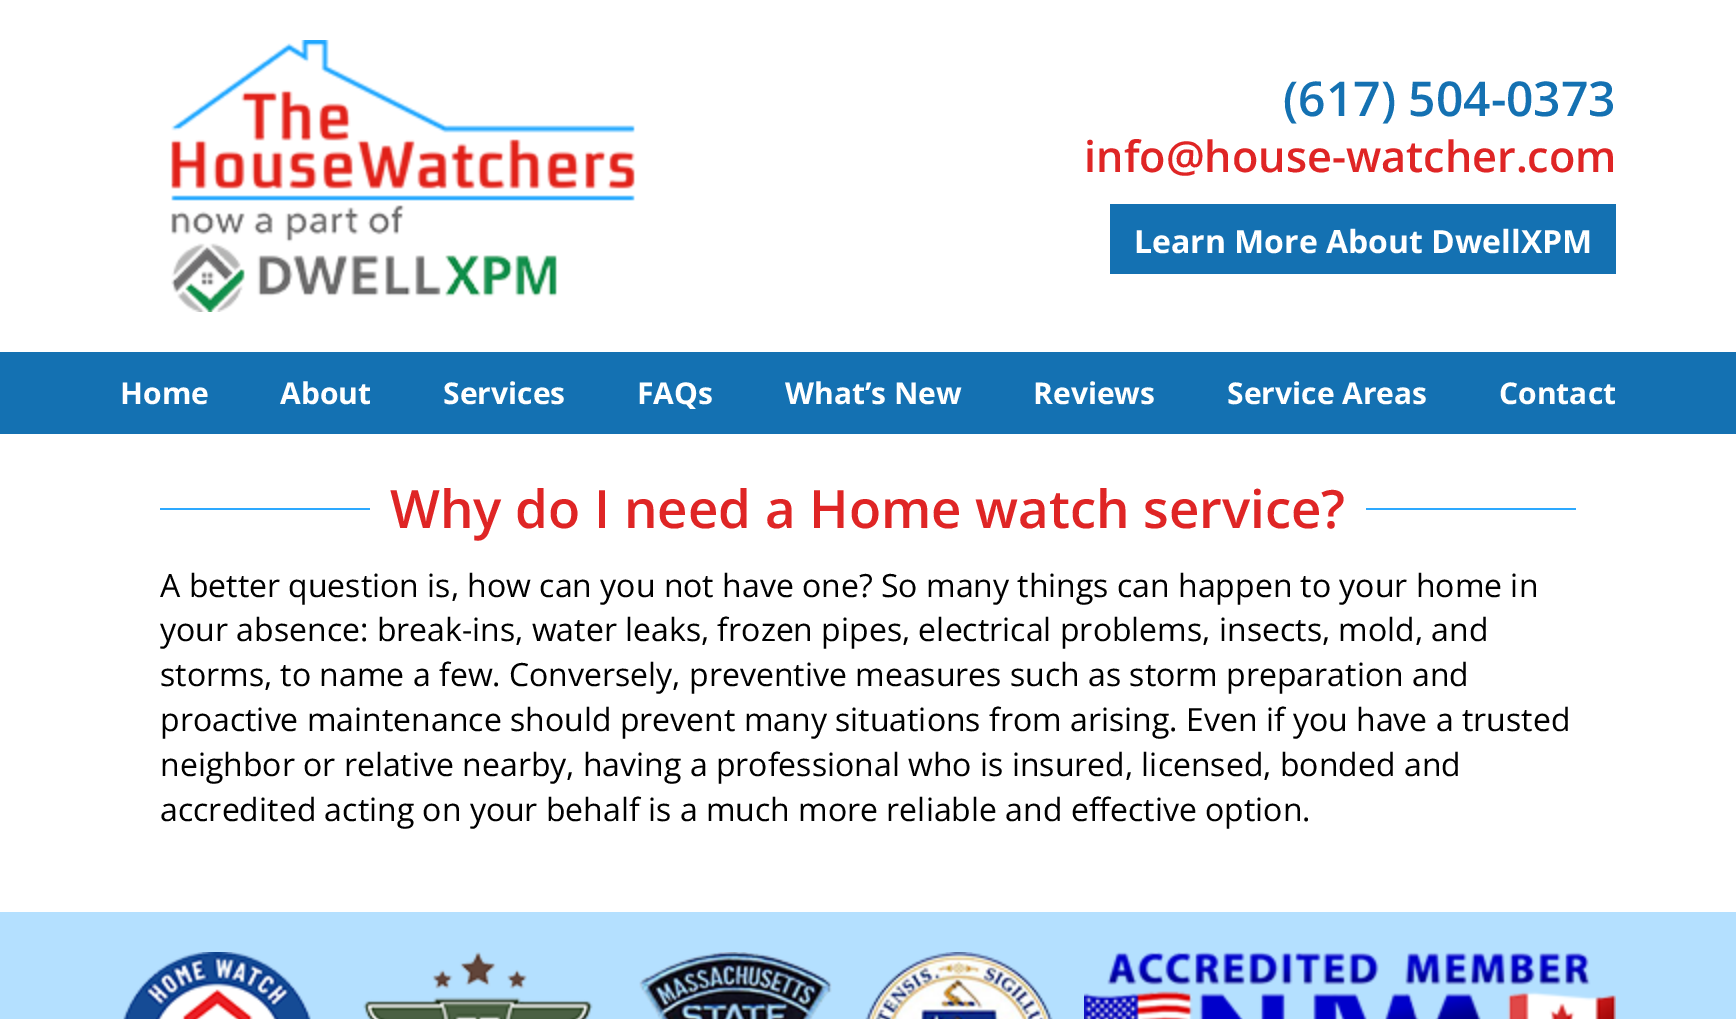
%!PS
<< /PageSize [1736 1019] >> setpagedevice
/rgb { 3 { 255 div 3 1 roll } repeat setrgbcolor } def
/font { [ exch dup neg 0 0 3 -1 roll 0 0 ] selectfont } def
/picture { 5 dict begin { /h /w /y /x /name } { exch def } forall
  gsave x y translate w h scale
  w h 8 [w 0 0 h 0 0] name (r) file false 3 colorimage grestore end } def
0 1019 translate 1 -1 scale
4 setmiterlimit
255 255 255 rgb
0 0 1736 1019 rectfill
(img/1.rgb) 171 40 464 272 picture
[
  [1110 204 506 70 20 113 178]
  [0 352 1736 82 20 113 178]
  [160 508 1416 2 45 169 255]
  [370 508 996 2 255 255 255]
  [0 912 1736 107 180 224 255]
] { aload pop rgb rectfill } forall
(img/2.rgb) 123 952 188 67 picture
(img/3.rgb) 363 952 230 67 picture
(img/4.rgb) 639 952 193 67 picture
(img/5.rgb) 865 952 188 67 picture
(img/6.rgb) 1084 952 532 67 picture
/OpenSans-SemiBold 48 font
20 113 178 rgb
1283 116 moveto (\(617\) 504-0373) show
/OpenSans-SemiBold 43.25 font
223 37 37 rgb
1084 172 moveto (info@house-watcher.com) show
/OpenSans-Bold 32 font
255 255 255 rgb
1134 253 moveto (Learn More About DwellXPM) show
/OpenSans-Bold 30 font
[
  [(Home) 120 404]
  [(About) 280 404]
  [(Services) 443 404]
  [(FAQs) 637 404]
  [(What’s New) 785 404]
  [(Reviews) 1033 404]
  [(Service Areas) 1227 404]
  [(Contact) 1499 404]
] { aload pop moveto show } forall
/OpenSans-SemiBold 52.75 font
223 37 37 rgb
390 528 moveto (Why do I need a Home watch service?) show
/OpenSans-Regular 32 font
0 0 0 rgb
[
  [(A better question is, how can you not have one? So many things can happen to your home in) 160 597]
  [(your absence: break-ins, water leaks, frozen pipes, electrical problems, insects, mold, and) 160 641]
  [(storms, to name a few. Conversely, preventive measures such as storm preparation and) 160 686]
  [(proactive maintenance should prevent many situations from arising. Even if you have a trusted) 160 731]
  [(neighbor or relative nearby, having a professional who is insured, licensed, bonded and) 160 776]
  [(accredited acting on your behalf is a much more reliable and effective option.) 160 821]
] { aload pop moveto show } forall
showpage
